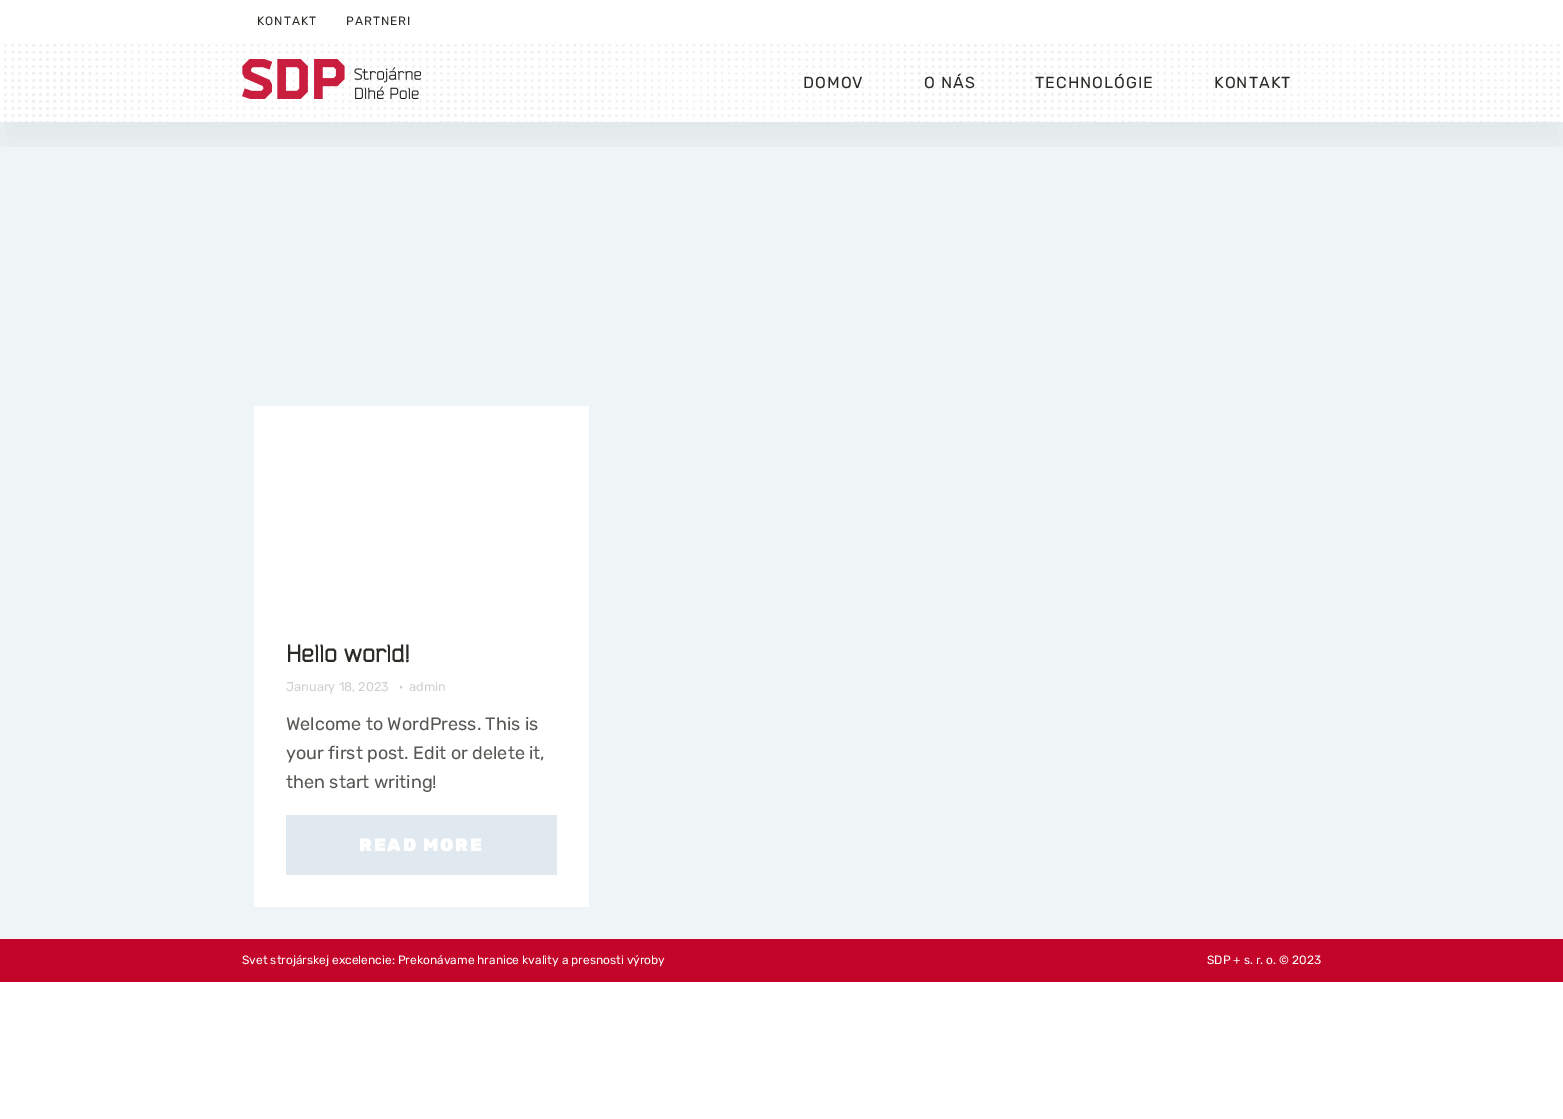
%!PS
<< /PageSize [1563 1119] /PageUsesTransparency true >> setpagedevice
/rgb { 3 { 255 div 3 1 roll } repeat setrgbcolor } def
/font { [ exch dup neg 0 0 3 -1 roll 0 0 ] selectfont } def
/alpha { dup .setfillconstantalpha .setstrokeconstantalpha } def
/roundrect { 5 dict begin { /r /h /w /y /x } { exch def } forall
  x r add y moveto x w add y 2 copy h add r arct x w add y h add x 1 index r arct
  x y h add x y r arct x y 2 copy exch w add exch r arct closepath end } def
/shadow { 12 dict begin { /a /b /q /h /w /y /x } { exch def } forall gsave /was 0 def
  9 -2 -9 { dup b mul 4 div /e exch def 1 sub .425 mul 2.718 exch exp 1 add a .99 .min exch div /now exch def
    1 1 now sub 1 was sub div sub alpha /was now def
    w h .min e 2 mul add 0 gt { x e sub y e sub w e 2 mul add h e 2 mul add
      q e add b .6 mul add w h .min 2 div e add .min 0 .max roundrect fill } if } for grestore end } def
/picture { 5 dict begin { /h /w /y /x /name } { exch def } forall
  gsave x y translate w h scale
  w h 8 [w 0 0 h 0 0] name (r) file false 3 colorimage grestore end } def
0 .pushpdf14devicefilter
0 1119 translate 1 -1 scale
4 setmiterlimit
255 255 255 rgb
0 0 1563 1119 rectfill
239 244 247 rgb
0 122 1563 817 rectfill
gsave
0 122 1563 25 rectclip
0 0 0 rgb
0 20 1563 122 0 20 0.05 shadow
grestore
(img/1.rgb) 4 44 1556 78 picture
(img/2.rgb) 242 59 179 40 picture
[
  [254 406 335 501 255 255 255]
  [286 815 271 60 224 233 239]
  [0 939 1563 43 196 5 42]
] { aload pop rgb rectfill } forall
/Rubik-Regular 12 font
43 44 39 rgb
257 25 moveto 1 0 (KONTAKT) ashow
346 25 moveto 1 0 (PARTNERI) ashow
/Rubik-Regular 16 font
803 88 moveto 1 0 (DOMOV) ashow
924 88 moveto 1 0 (O NÁS) ashow
1035 88 moveto 1 0 (TECHNOLÓGIE) ashow
1214 88 moveto 1 0 (KONTAKT) ashow
/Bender-Bold 24 font
286 662 moveto (Hello world!) show
/Rubik-Regular 12.75 font
207 207 207 rgb
[
  [(January 18, 2023) 286 691]
  [(·) 399 691]
  [(admin) 409 691]
] { aload pop moveto show } forall
/Rubik-Regular 18 font
87 88 83 rgb
[
  [(Welcome to WordPress. This is) 286 730]
  [(your first post. Edit or delete it,) 286 759]
  [(then start writing!) 286 788]
] { aload pop moveto show } forall
/Rubik-Black 18 font
255 255 255 rgb
359 851 moveto 1.75 0 (READ MORE) ashow
/Rubik-Regular 12 font
242 964 moveto (Svet strojárskej excelencie: Prekonávame hranice kvality a presnosti výroby) show
1207 964 moveto (SDP + s. r. o. © 2023) show
.poppdf14devicefilter showpage
